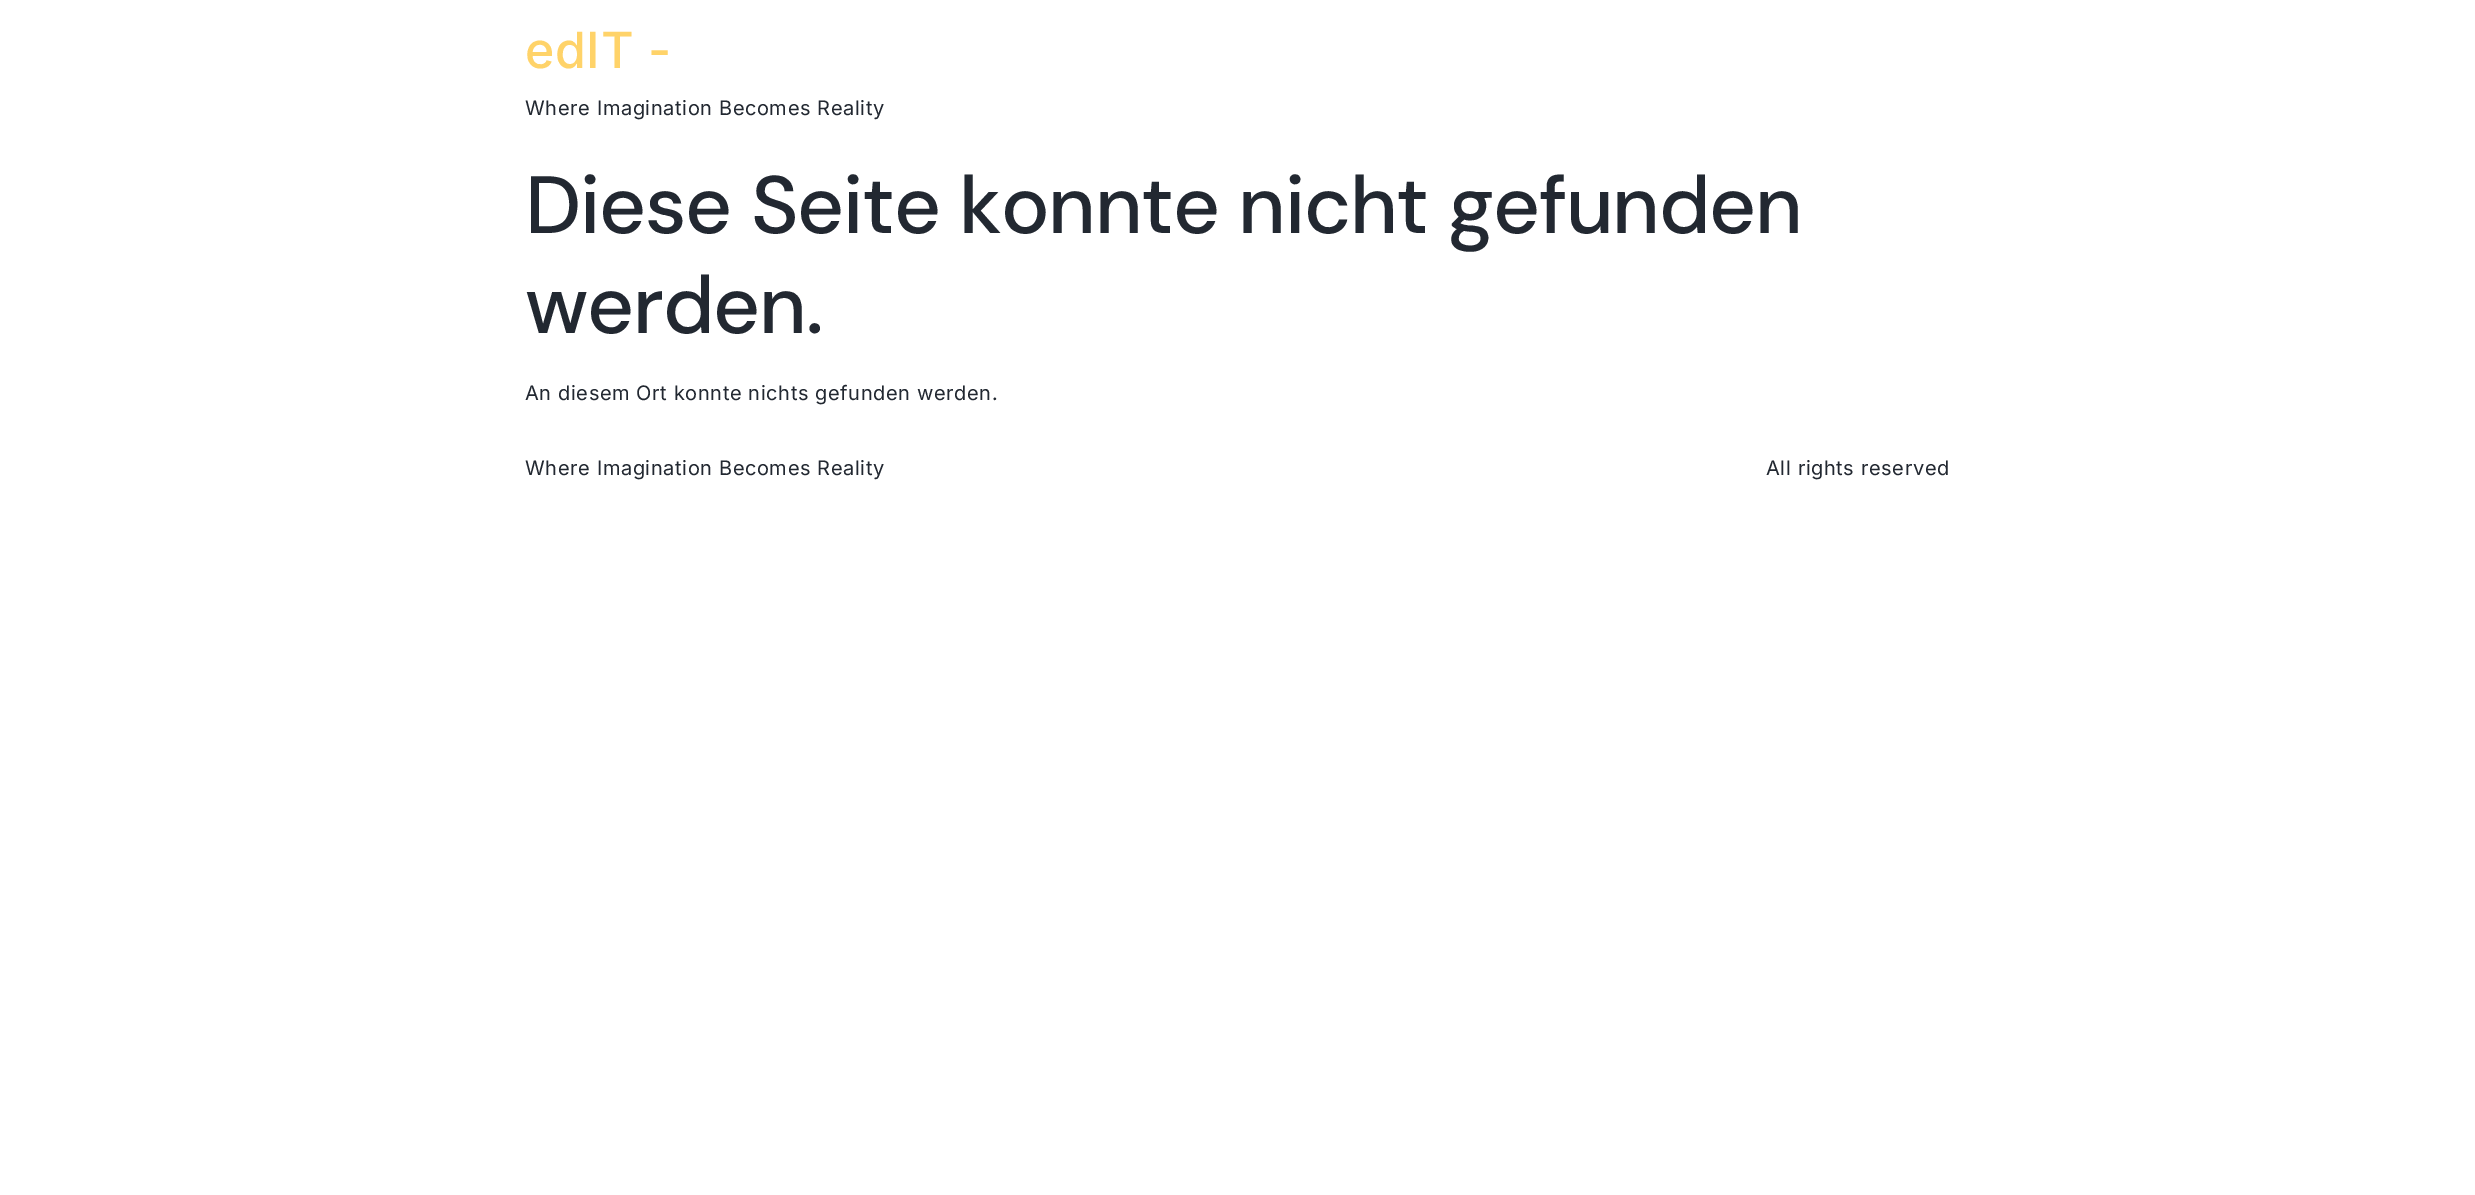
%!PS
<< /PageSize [2475 1195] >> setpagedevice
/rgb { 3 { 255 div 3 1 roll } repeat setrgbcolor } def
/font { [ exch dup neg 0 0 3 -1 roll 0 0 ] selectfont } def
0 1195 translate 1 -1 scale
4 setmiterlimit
255 255 255 rgb
0 0 2475 1195 rectfill
/Inter-Medium 50 font
255 211 105 rgb
525 68 moveto 0.6 0 (edIT -) ashow
/Inter-Regular 20 font
34 40 49 rgb
525 115 moveto 0.6 0 (Where Imagination Becomes Reality) ashow
/DMSans-Medium 81.25 font
525 233 moveto -1.25 0 (Diese Seite konnte nicht gefunden) ashow
525 333 moveto -1.25 0 (werden.) ashow
/Inter-Regular 20 font
525 400 moveto 0.6 0 (An diesem Ort konnte nichts gefunden werden.) ashow
525 475 moveto 0.6 0 (Where Imagination Becomes Reality) ashow
1766 475 moveto 0.6 0 (All rights reserved) ashow
showpage
